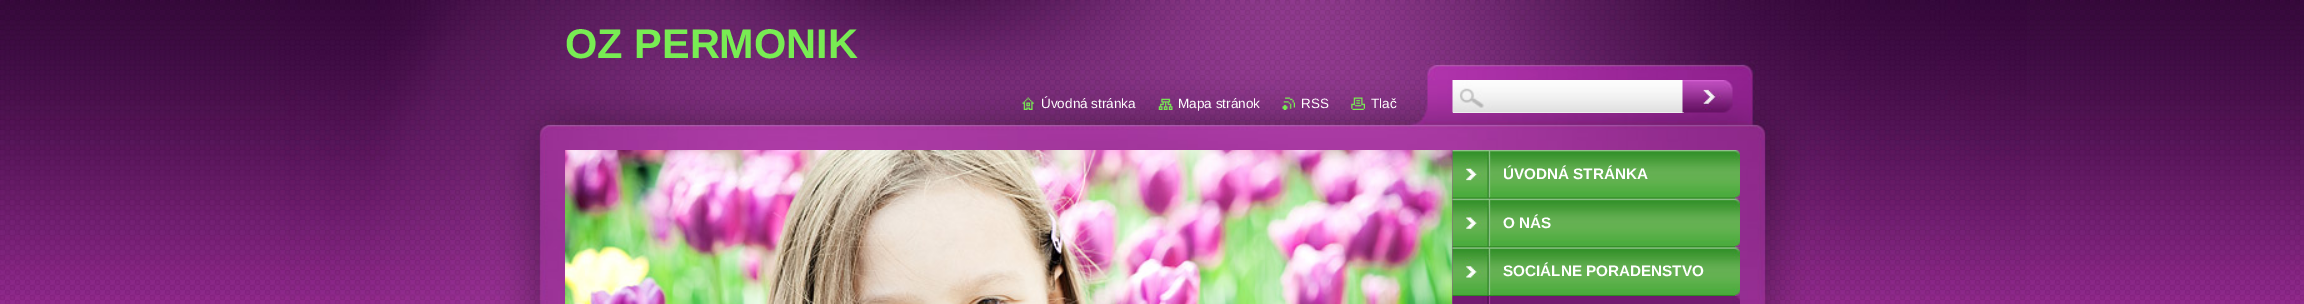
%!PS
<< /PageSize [2304 304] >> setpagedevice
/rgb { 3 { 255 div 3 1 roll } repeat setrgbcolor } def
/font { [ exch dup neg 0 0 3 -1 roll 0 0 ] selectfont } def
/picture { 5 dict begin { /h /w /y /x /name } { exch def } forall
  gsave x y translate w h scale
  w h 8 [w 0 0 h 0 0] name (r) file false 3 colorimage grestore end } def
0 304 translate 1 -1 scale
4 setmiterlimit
255 255 255 rgb
0 0 2304 304 rectfill
(img/1.rgb) 0 0 2304 304 picture
(img/2.rgb) 278 0 1749 304 picture
(img/3.rgb) 565 150 888 154 picture
(img/4.rgb) 1022 97 12 13 picture
(img/5.rgb) 1158 98 15 12 picture
(img/6.rgb) 1282 97 13 13 picture
(img/7.rgb) 1351 97 14 13 picture
1453 112 231 1 rectfill
(img/8.rgb) 1452 80 232 33 picture
(img/9.rgb) 1682 80 51 33 picture
(img/10.rgb) 1452 150 288 49 picture
(img/11.rgb) 1452 198 288 50 picture
(img/12.rgb) 1452 247 288 50 picture
(img/13.rgb) 1452 296 288 8 picture
/LiberationSans-Bold 41.5 font
120 236 83 rgb
565 58 moveto (OZ PERMONIK) show
/LiberationSans-Regular 13.5 font
255 255 255 rgb
[
  [(Úvodná stránka) 1041 108]
  [(Mapa stránok) 1178 108]
  [(RSS) 1301 108]
  [(Tlač) 1371 108]
] { aload pop moveto show } forall
/LiberationSans-Bold 15.25 font
[
  [(ÚVODNÁ STRÁNKA) 1503 179]
  [(O NÁS) 1503 228]
  [(SOCIÁLNE PORADENSTVO) 1503 276]
] { aload pop moveto show } forall
showpage
